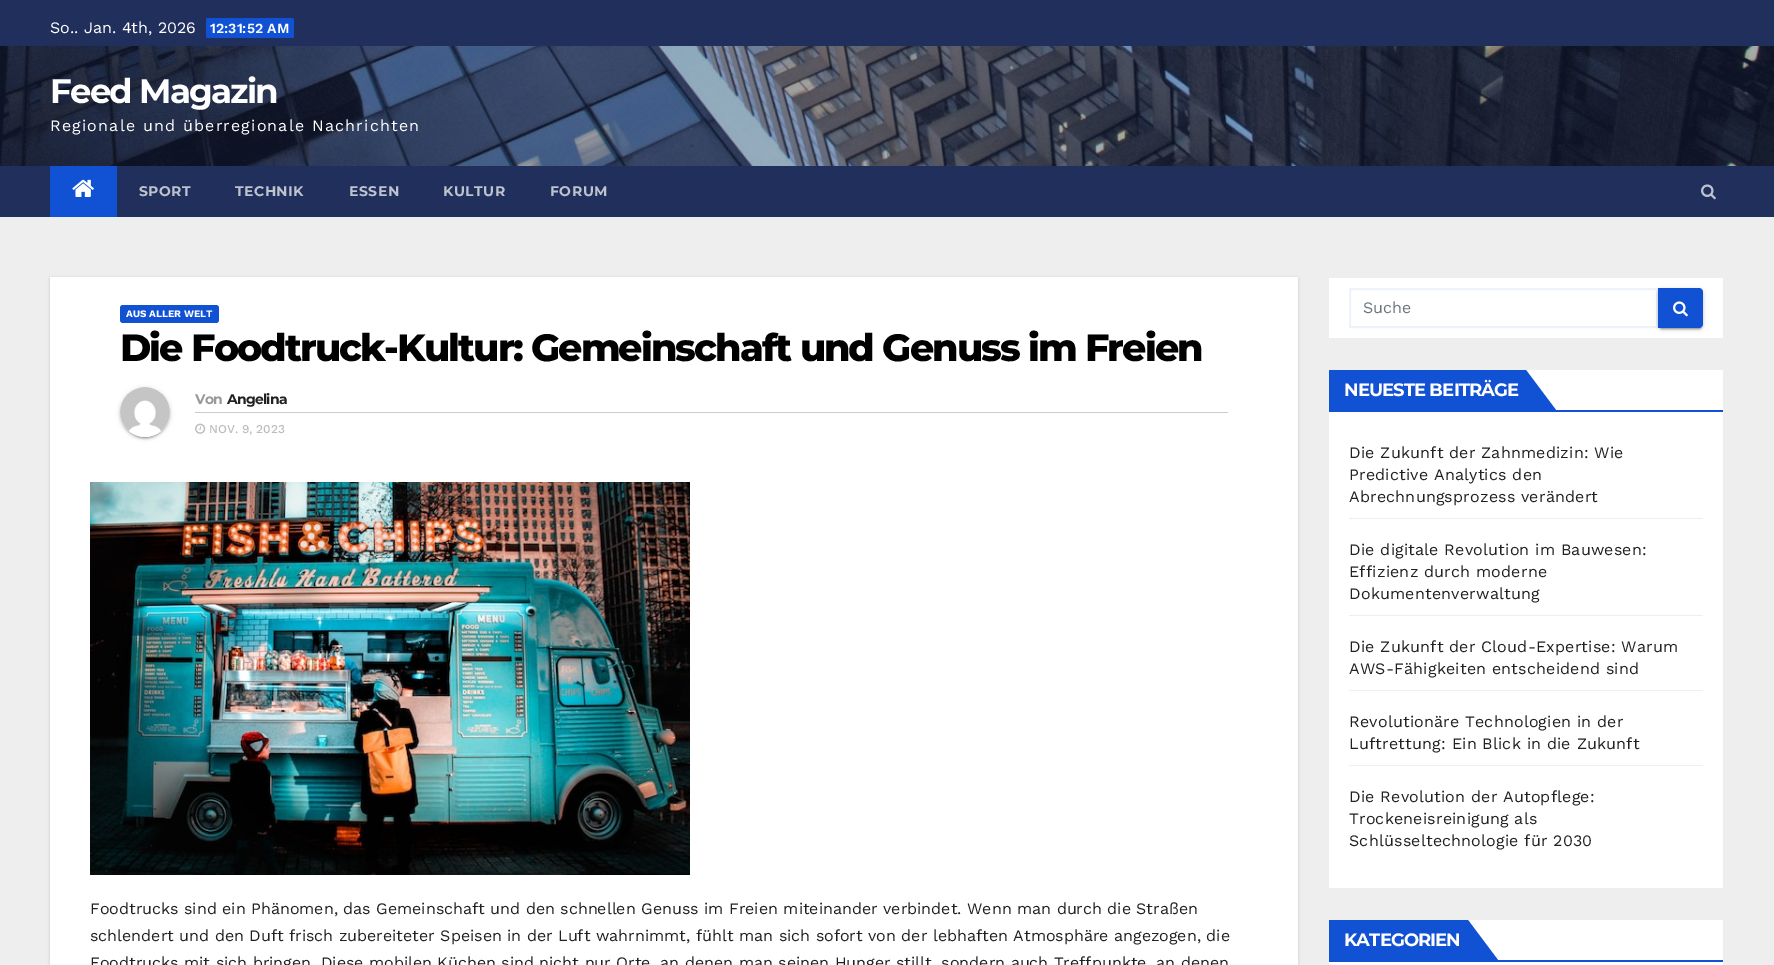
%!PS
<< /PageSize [1774 965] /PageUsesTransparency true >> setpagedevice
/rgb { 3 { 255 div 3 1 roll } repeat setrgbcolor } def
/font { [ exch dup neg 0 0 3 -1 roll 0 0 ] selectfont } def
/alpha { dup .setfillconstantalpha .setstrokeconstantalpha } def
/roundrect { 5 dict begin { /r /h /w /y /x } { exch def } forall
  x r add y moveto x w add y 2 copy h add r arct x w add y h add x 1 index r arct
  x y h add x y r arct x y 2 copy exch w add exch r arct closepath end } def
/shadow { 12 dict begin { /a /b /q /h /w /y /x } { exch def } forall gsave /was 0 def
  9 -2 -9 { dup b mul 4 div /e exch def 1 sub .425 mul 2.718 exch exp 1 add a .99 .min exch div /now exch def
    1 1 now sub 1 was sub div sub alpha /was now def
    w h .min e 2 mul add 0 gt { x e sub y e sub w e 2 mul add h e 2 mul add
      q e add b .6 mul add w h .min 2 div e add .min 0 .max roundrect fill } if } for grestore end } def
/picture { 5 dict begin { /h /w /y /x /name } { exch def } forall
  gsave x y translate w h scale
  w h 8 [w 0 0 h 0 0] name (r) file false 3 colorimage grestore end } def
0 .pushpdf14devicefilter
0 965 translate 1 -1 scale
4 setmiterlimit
238 238 238 rgb
0 0 1774 965 rectfill
32 47 91 rgb
0 0 1774 46 rectfill
17 81 211 rgb
206 18 88 20 2 roundrect fill
(img/1.rgb) 0 46 1774 120 picture
32 47 91 rgb
0 166 1774 51 rectfill
17 81 211 rgb
50 166 67 51 rectfill
(img/2.rgb) 72 179 22 18 picture
(img/3.rgb) 1701 184 15 16 picture
0 0 0 rgb
50 278 1248 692 0 1.5 0.15 shadow
255 255 255 rgb
50 277 1248 688 rectfill
17 81 211 rgb
120 305 99 18 3 roundrect fill
0 0 0 rgb
120 388 50 50 25 2.5 0.12 shadow
122 392 46 46 23 0.5 0.2 shadow
120 389 50 50 25 1 0.14 shadow
(img/4.rgb) 120 387 50 50 picture
204 204 204 rgb
195 412 1033 1 rectfill
(img/5.rgb) 195 423 11 11 picture
(img/6.rgb) 90 482 600 393 picture
255 255 255 rgb
1329 278 394 60 rectfill
238 243 251 rgb
2 setlinewidth
1350 289 307 38 rectstroke
0 0 0 rgb
1658 289 45 40 4 2.5 0.12 shadow
1660 293 41 36 2 0.5 0.2 shadow
1658 290 45 40 4 1 0.14 shadow
17 81 211 rgb
1658 288 moveto 1699 288 lineto 1701 288 1703 290 1703 292 curveto 1703 324 lineto 1703 326 1701 328 1699 328 curveto 1658 328 lineto closepath fill
(img/7.rgb) 1673 301 15 16 picture
[
  [1329 370 394 518 255 255 255]
  [1329 410 394 2 17 81 211]
  [1329 370 197 40 17 81 211]
] { aload pop rgb rectfill } forall
1526 410 moveto 1526 370 lineto 1556 410 lineto closepath fill
[
  [1349 518 354 1 238 238 238]
  [1349 615 354 1 238 238 238]
  [1349 690 354 1 238 238 238]
  [1349 765 354 1 238 238 238]
  [1329 920 394 45 255 255 255]
  [1329 960 394 2 17 81 211]
  [1329 920 139 40 17 81 211]
] { aload pop rgb rectfill } forall
1468 960 moveto 1468 920 lineto 1498 960 lineto closepath fill
/WorkSans-Regular 16 font
255 255 255 rgb
50 33 moveto (So.. Jan. 4th, 2026) show
/WorkSans-SemiBold 14 font
210 33 moveto (12:31:52 AM) show
/Montserrat-Bold 34 font
50 103 moveto -1.75 0 (Feed Magazin) ashow
/WorkSans-Regular 16 font
50 131 moveto 1.2 0 (Regionale und überregionale Nachrichten) ashow
/Montserrat-Bold 14 font
190 195 207 rgb
139 196 moveto 0.5 0 (SPORT) ashow
235 196 moveto 0.5 0 (TECHNIK) ashow
349 196 moveto 0.5 0 (ESSEN) ashow
443 196 moveto 0.5 0 (KULTUR) ashow
550 196 moveto 0.5 0 (FORUM) ashow
/WorkSans-Bold 10 font
255 255 255 rgb
126 317 moveto (AUS ALLER WELT) show
/Montserrat-ExtraBold 38 font
0 0 0 rgb
120 361 moveto -1.9 0 (Die Foodtruck-Kultur: Gemeinschaft und Genuss im Freien) ashow
/Montserrat-Bold 14 font
153 153 153 rgb
195 404 moveto -0.75 0 (Von) ashow
33 33 33 rgb
227 404 moveto -0.75 0 (Angelina) ashow
/WorkSans-Medium 12 font
189 189 189 rgb
209 433 moveto (NOV. 9, 2023) show
/WorkSans-Regular 16 font
33 33 33 rgb
[
  [(Foodtrucks sind ein Phänomen, das Gemeinschaft und den schnellen Genuss im Freien miteinander verbindet. Wenn man durch die Straßen) 90 914]
  [(schlendert und den Duft frisch zubereiteter Speisen in der Luft wahrnimmt, fühlt man sich sofort von der lebhaften Atmosphäre angezogen, die) 90 941]
  [(Foodtrucks mit sich bringen. Diese mobilen Küchen sind nicht nur Orte, an denen man seinen Hunger stillt, sondern auch Treffpunkte, an denen) 90 968]
] { aload pop moveto show } forall
108 117 125 rgb
1363 313 moveto (Suche) show
/Montserrat-Bold 18 font
255 255 255 rgb
1344 396 moveto -0.9 0 (NEUESTE BEITRÄGE) ashow
/WorkSans-Regular 16 font
33 33 33 rgb
1349 458 moveto 0.2 0 (Die Zukunft der Zahnmedizin: Wie) ashow
1349 480 moveto 0.2 0 (Predictive Analytics den) ashow
1349 502 moveto 0.2 0 (Abrechnungsprozess verändert) ashow
1349 555 moveto 0.2 0 (Die digitale Revolution im Bauwesen:) ashow
1349 577 moveto 0.2 0 (Effizienz durch moderne) ashow
1349 599 moveto 0.2 0 (Dokumentenverwaltung) ashow
1349 652 moveto 0.2 0 (Die Zukunft der Cloud-Expertise: Warum) ashow
1349 674 moveto 0.2 0 (AWS-Fähigkeiten entscheidend sind) ashow
1349 727 moveto 0.2 0 (Revolutionäre Technologien in der) ashow
1349 749 moveto 0.2 0 (Luftrettung: Ein Blick in die Zukunft) ashow
1349 802 moveto 0.2 0 (Die Revolution der Autopflege:) ashow
1349 824 moveto 0.2 0 (Trockeneisreinigung als) ashow
1349 846 moveto 0.2 0 (Schlüsseltechnologie für 2030) ashow
/Montserrat-Bold 18 font
255 255 255 rgb
1344 946 moveto -0.9 0 (KATEGORIEN) ashow
.poppdf14devicefilter showpage
